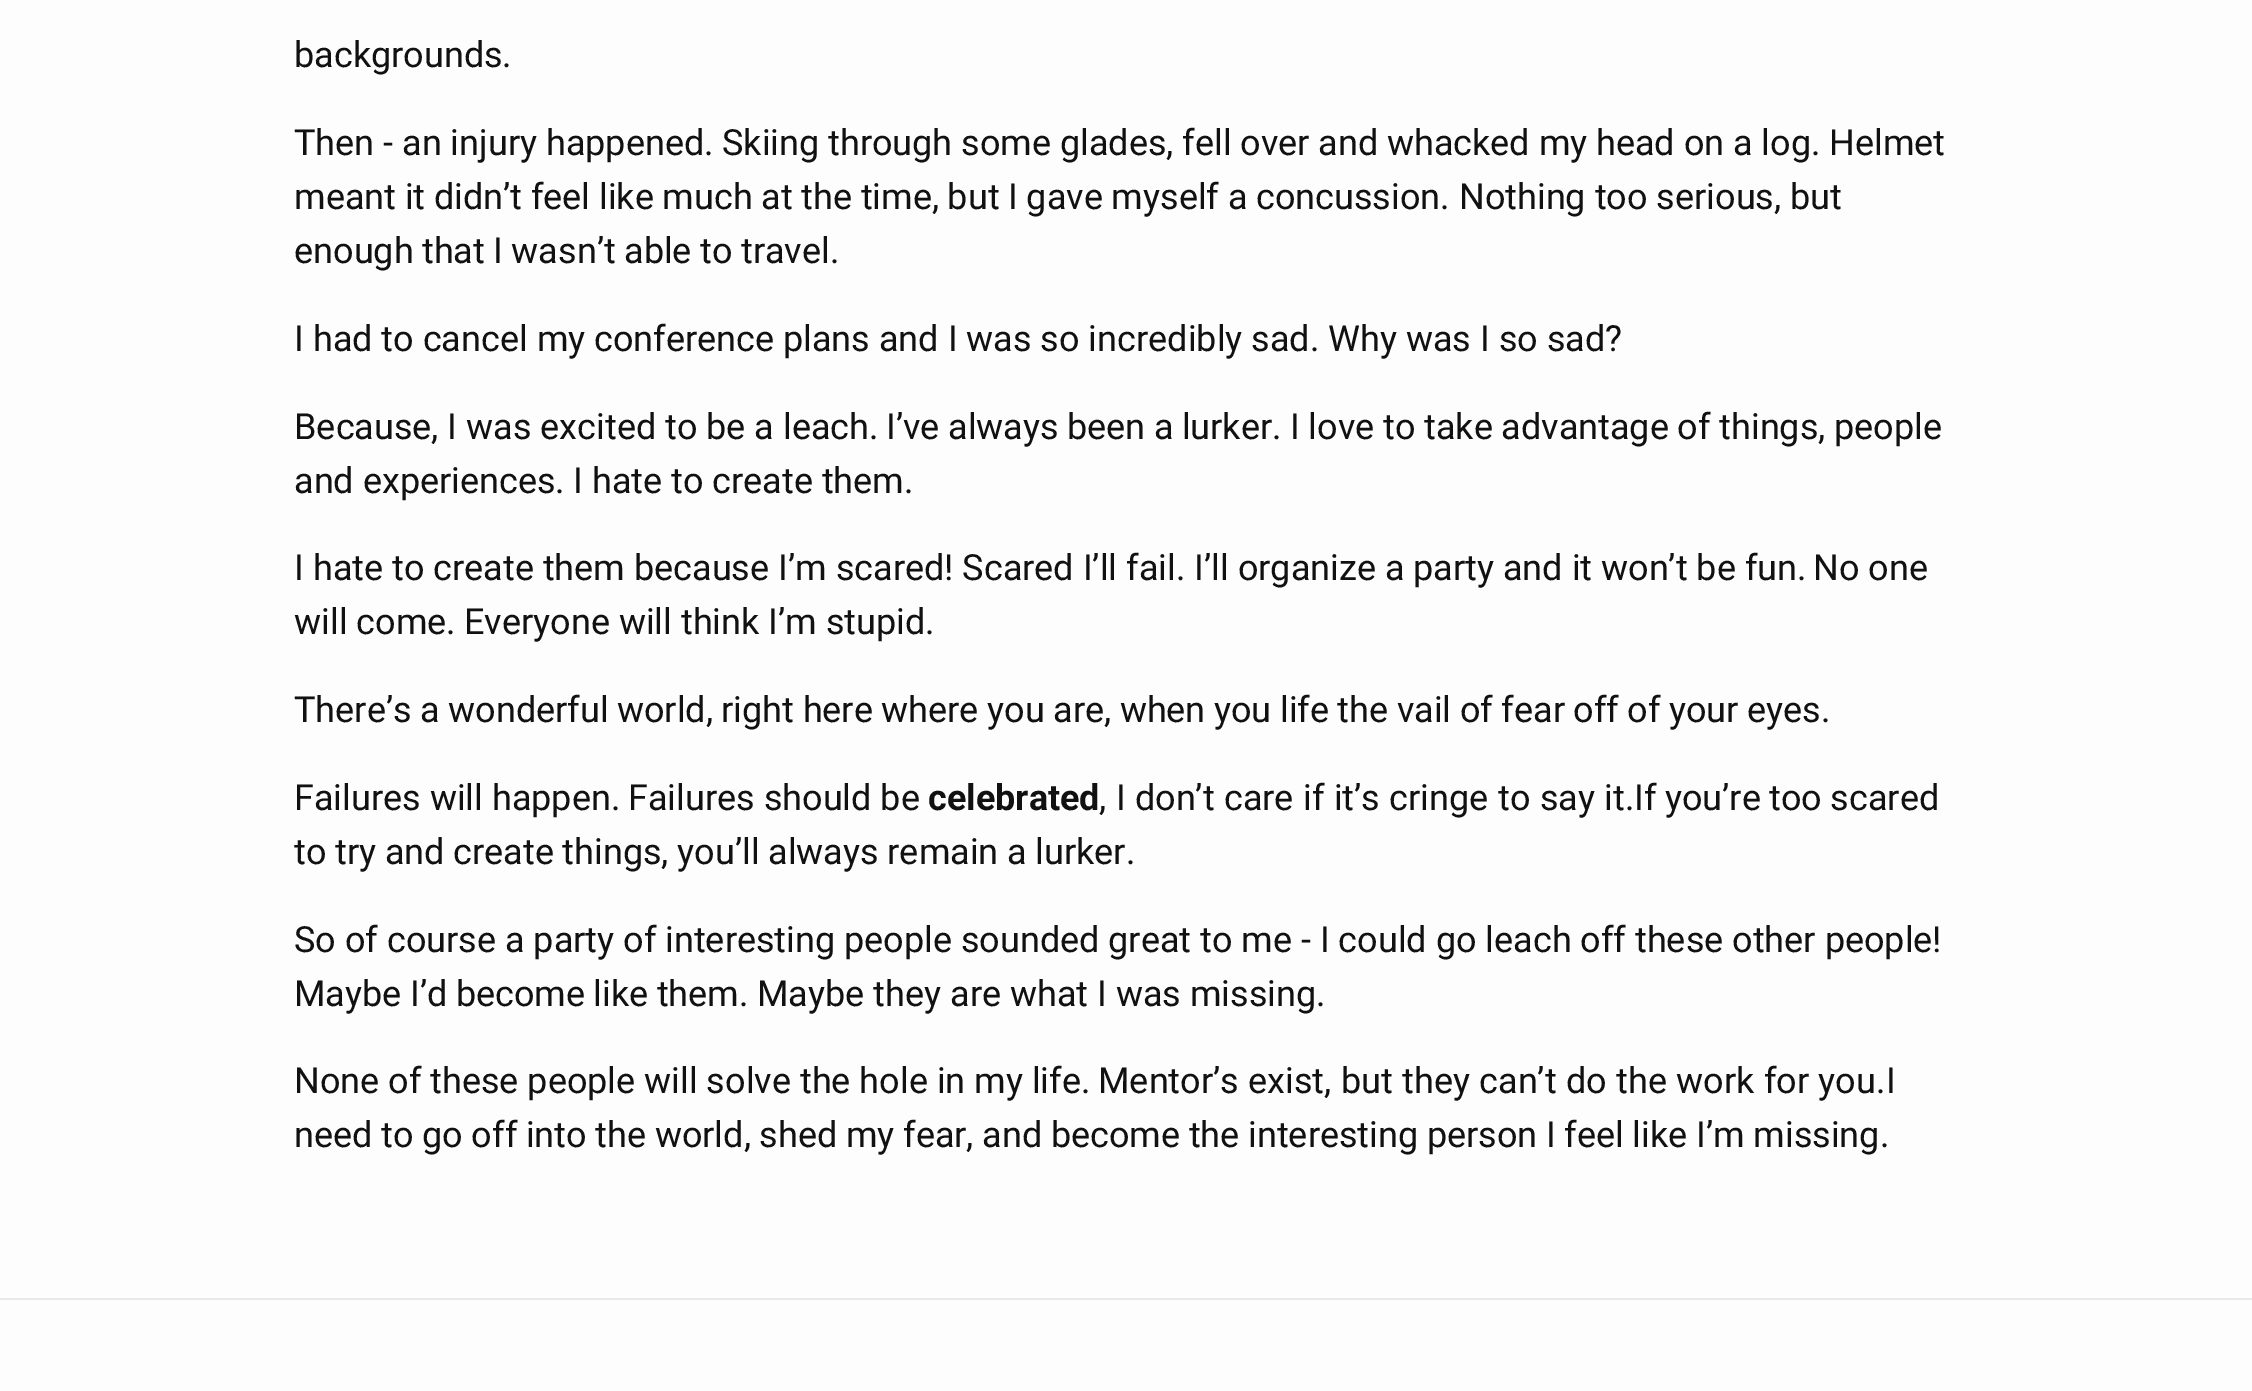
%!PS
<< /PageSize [2252 1391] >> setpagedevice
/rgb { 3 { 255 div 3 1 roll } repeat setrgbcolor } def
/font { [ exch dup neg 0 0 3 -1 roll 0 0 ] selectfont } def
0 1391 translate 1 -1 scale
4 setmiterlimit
253 253 253 rgb
0 0 2252 1391 rectfill
232 232 232 rgb
0 1298 2252 2 rectfill
/Roboto-Regular 36 font
17 17 17 rgb
294 67 moveto (backgrounds.) show
294 155 moveto (Then - an injury happened.) show
722 155 moveto -0.1 0 32 (Skiing through some glades, fell over and whacked my head on a log.) widthshow
1829 155 moveto (Helmet) show
294 209 moveto -0.25 0 32 (meant it didn’t feel like much at the time, but I gave myself a concussion.) widthshow
1459 209 moveto (Nothing too serious, but) show
294 263 moveto -0.5 0 32 (enough that I wasn’t able to travel.) widthshow
294 351 moveto (I had to cancel my conference plans and I was so incredibly sad. Why was I so sad?) show
294 439 moveto (Because, I was excited to be a leach.) show
886 439 moveto -0.5 0 32 (I’ve always been a lurker.) widthshow
1290 439 moveto -0.25 0 32 (I love to take advantage of things, people) widthshow
[
  [(and experiences.) 294 493]
  [(I hate to create them.) 573 493]
  [(I hate to create them because I’m scared! Scared I’ll fail. I’ll organize a party and it won’t be fun.) 294 580]
  [(No one) 1813 580]
  [(will come.) 294 634]
  [(Everyone will think I’m stupid.) 464 634]
] { aload pop moveto show } forall
294 722 moveto -0.4 0 32 (There’s a wonderful world, right here where you are, when you life the vail of fear off of your eyes.) widthshow
294 810 moveto (Failures will happen.) show
628 810 moveto (Failures should be) show
/Roboto-Bold 36 font
928 810 moveto (celebrated) show
/Roboto-Regular 36 font
1099 810 moveto 0.5 0 32 (, I don’t care if it’s cringe to say it.) widthshow
1634 810 moveto -0.5 0 32 (If you’re too scared) widthshow
294 864 moveto -0.25 0 32 (to try and create things, you’ll always remain a lurker.) widthshow
294 952 moveto (So of course a party of interesting people sounded great to me - I could go leach off these other people!) show
294 1006 moveto -0.5 0 32 (Maybe I’d become like them.) widthshow
757 1006 moveto (Maybe they are what I was missing.) show
294 1093 moveto (None of these people will solve the hole in my life.) show
1098 1093 moveto 0.5 0 32 (Mentor’s exist, but they can’t do the work for you.) widthshow
1886 1093 moveto (I) show
294 1147 moveto -0.25 0 32 (need to go off into the world, shed my fear, and become the interesting person I feel like I’m missing.) widthshow
showpage
